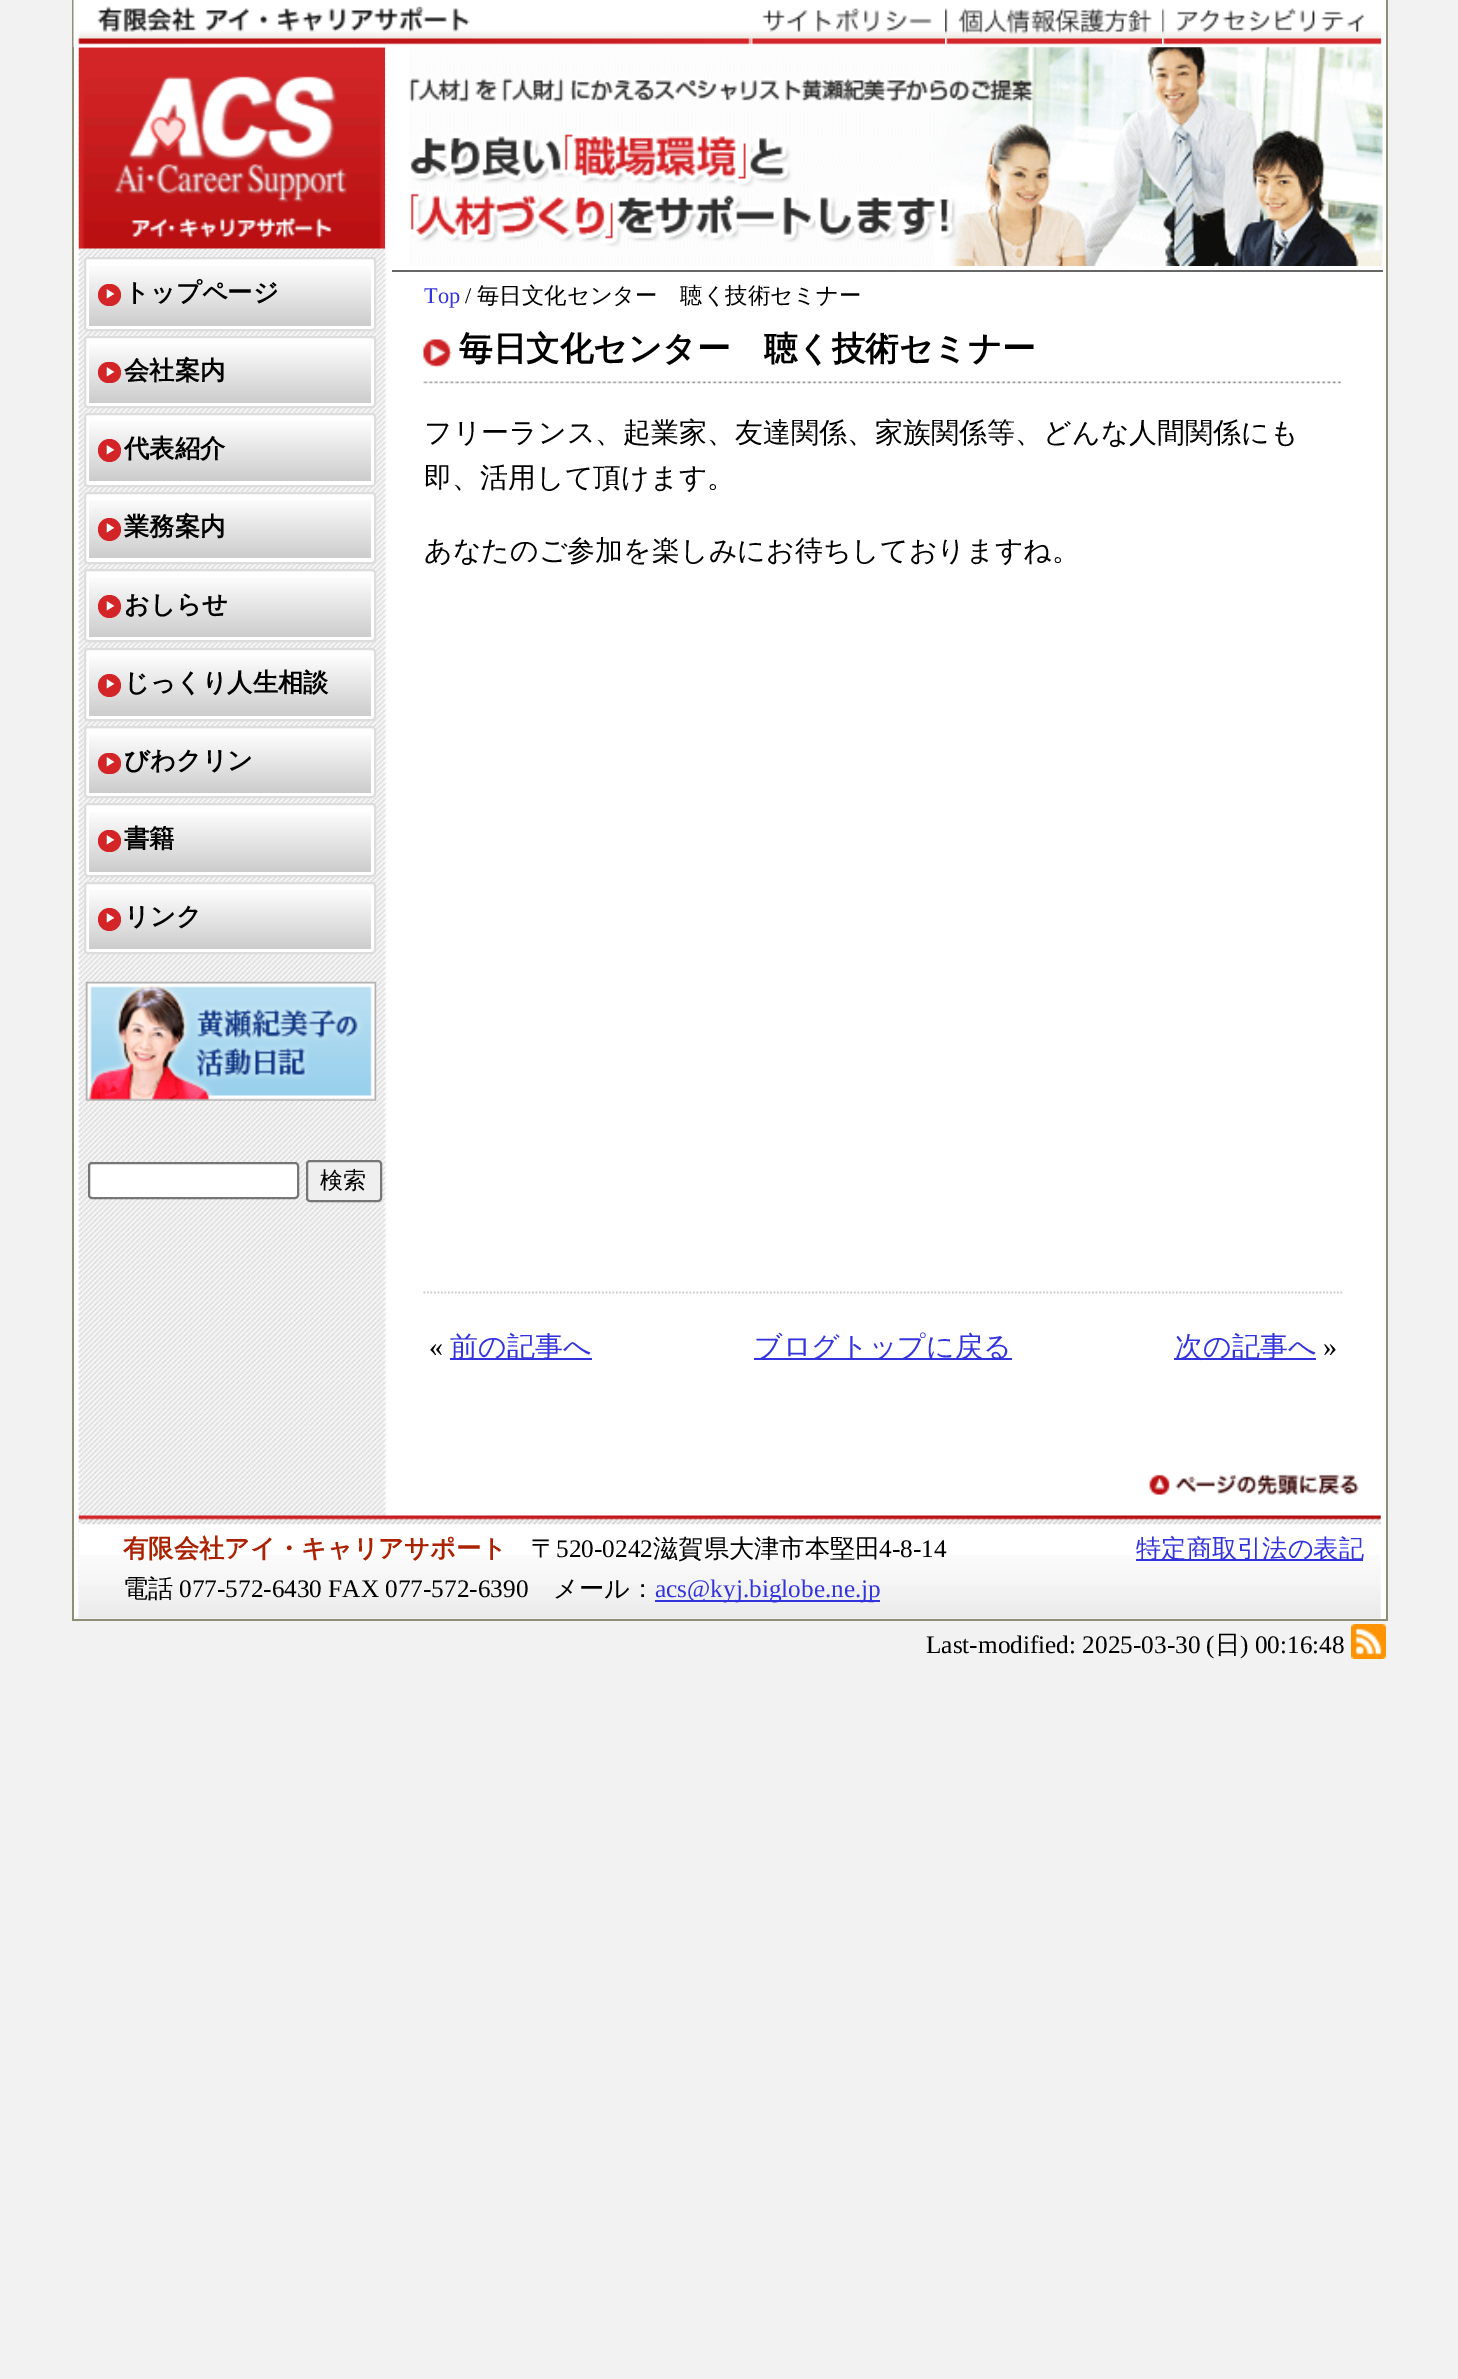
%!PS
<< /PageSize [1458 2379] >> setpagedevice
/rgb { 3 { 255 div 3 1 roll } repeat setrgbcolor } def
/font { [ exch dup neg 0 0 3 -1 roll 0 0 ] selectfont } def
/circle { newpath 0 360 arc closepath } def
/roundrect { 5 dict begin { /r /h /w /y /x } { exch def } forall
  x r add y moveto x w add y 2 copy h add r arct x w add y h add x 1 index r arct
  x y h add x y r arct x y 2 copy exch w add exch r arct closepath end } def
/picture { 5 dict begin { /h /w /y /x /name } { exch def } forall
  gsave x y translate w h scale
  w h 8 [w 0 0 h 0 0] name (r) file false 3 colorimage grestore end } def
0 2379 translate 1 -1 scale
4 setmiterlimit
242 242 242 rgb
0 0 1458 2379 rectfill
255 255 255 rgb
74 47 1312 1572 rectfill
(img/1.rgb) 78 47 309 1572 picture
[
  [1386 0 2 1621 142 143 118]
  [72 1619 1316 2 142 143 118]
  [72 0 2 1621 142 143 118]
  [1382 0 4 47 255 255 255]
] { aload pop rgb rectfill } forall
(img/6.rgb) 78 47 307 202 picture
(img/2.rgb) 73 0 1309 48 picture
(img/3.rgb) 750 8 195 37 picture
(img/4.rgb) 945 8 217 37 picture
(img/5.rgb) 1162 8 219 37 picture
85 258 290 72 3 roundrect gsave fill grestore
221 221 221 rgb
2 setlinewidth
stroke
gsave 89 266 moveto 371 266 lineto 371 326 lineto 89 326 lineto closepath clip newpath
<< /ShadingType 2 /ColorSpace /DeviceRGB /Coords [230 263 230 326] /Extend [true true] /Function << /FunctionType 2 /Domain [0 1] /C0 [1 1 1] /C1 [0.8 0.8 0.8] /N 1 >> >> shfill grestore
211 36 40 rgb
98 284 23 22 11 roundrect fill
255 255 255 rgb
85 337 290 70 3 roundrect gsave fill grestore
221 221 221 rgb
stroke
gsave 89 344 moveto 371 344 lineto 371 403 lineto 89 403 lineto closepath clip newpath
<< /ShadingType 2 /ColorSpace /DeviceRGB /Coords [230 341 230 403] /Extend [true true] /Function << /FunctionType 2 /Domain [0 1] /C0 [1 1 1] /C1 [0.8 0.8 0.8] /N 1 >> >> shfill grestore
211 36 40 rgb
98 362 23 21 10.5 roundrect fill
255 255 255 rgb
85 414 290 72 3 roundrect gsave fill grestore
221 221 221 rgb
stroke
gsave 89 421 moveto 371 421 lineto 371 481 lineto 89 481 lineto closepath clip newpath
<< /ShadingType 2 /ColorSpace /DeviceRGB /Coords [230 418 230 481] /Extend [true true] /Function << /FunctionType 2 /Domain [0 1] /C0 [1 1 1] /C1 [0.8 0.8 0.8] /N 1 >> >> shfill grestore
211 36 40 rgb
109.5 450.5 11.5 circle fill
255 255 255 rgb
85 493 290 70 3 roundrect gsave fill grestore
221 221 221 rgb
stroke
gsave 89 500 moveto 371 500 lineto 371 558 lineto 89 558 lineto closepath clip newpath
<< /ShadingType 2 /ColorSpace /DeviceRGB /Coords [230 497 230 558] /Extend [true true] /Function << /FunctionType 2 /Domain [0 1] /C0 [1 1 1] /C1 [0.8 0.8 0.8] /N 1 >> >> shfill grestore
211 36 40 rgb
109.5 529.5 11.5 circle fill
255 255 255 rgb
85 570 290 71 3 roundrect gsave fill grestore
221 221 221 rgb
stroke
gsave 89 577 moveto 371 577 lineto 371 637 lineto 89 637 lineto closepath clip newpath
<< /ShadingType 2 /ColorSpace /DeviceRGB /Coords [230 574 230 637] /Extend [true true] /Function << /FunctionType 2 /Domain [0 1] /C0 [1 1 1] /C1 [0.8 0.8 0.8] /N 1 >> >> shfill grestore
211 36 40 rgb
109.5 606.5 11.5 circle fill
255 255 255 rgb
85 649 290 71 3 roundrect gsave fill grestore
221 221 221 rgb
stroke
gsave 89 656 moveto 371 656 lineto 371 716 lineto 89 716 lineto closepath clip newpath
<< /ShadingType 2 /ColorSpace /DeviceRGB /Coords [230 653 230 716] /Extend [true true] /Function << /FunctionType 2 /Domain [0 1] /C0 [1 1 1] /C1 [0.8 0.8 0.8] /N 1 >> >> shfill grestore
211 36 40 rgb
109.5 685.5 11.5 circle fill
255 255 255 rgb
85 727 290 70 3 roundrect gsave fill grestore
221 221 221 rgb
stroke
gsave 89 735 moveto 371 735 lineto 371 793 lineto 89 793 lineto closepath clip newpath
<< /ShadingType 2 /ColorSpace /DeviceRGB /Coords [230 732 230 793] /Extend [true true] /Function << /FunctionType 2 /Domain [0 1] /C0 [1 1 1] /C1 [0.8 0.8 0.8] /N 1 >> >> shfill grestore
211 36 40 rgb
98 753 23 21 10.5 roundrect fill
255 255 255 rgb
85 804 290 72 3 roundrect gsave fill grestore
221 221 221 rgb
stroke
gsave 89 812 moveto 371 812 lineto 371 872 lineto 89 872 lineto closepath clip newpath
<< /ShadingType 2 /ColorSpace /DeviceRGB /Coords [230 809 230 872] /Extend [true true] /Function << /FunctionType 2 /Domain [0 1] /C0 [1 1 1] /C1 [0.8 0.8 0.8] /N 1 >> >> shfill grestore
211 36 40 rgb
98 830 23 22 11 roundrect fill
255 255 255 rgb
85 883 290 70 3 roundrect gsave fill grestore
221 221 221 rgb
stroke
gsave 89 890 moveto 371 890 lineto 371 949 lineto 89 949 lineto closepath clip newpath
<< /ShadingType 2 /ColorSpace /DeviceRGB /Coords [230 887 230 949] /Extend [true true] /Function << /FunctionType 2 /Domain [0 1] /C0 [1 1 1] /C1 [0.8 0.8 0.8] /N 1 >> >> shfill grestore
211 36 40 rgb
109.5 919.5 11.5 circle fill
(img/7.rgb) 85 981 292 120 picture
255 255 255 rgb
89 1163 209 35 3 roundrect gsave fill grestore
118 118 118 rgb
stroke
239 239 239 rgb
307 1161 74 40 3 roundrect gsave fill grestore
118 118 118 rgb
stroke
(img/8.rgb) 409 47 974 219 picture
102 102 102 rgb
392 270 991 2 rectfill
(img/9.rgb) 423 339 918 45 picture
204 204 204 rgb
1.8 setlinewidth
[1.75 1.75] 0 setdash
423.5 1292.5 moveto 1342 1292.5 lineto stroke
[
  [450 1358 142 2 51 51 221]
  [754 1358 258 2 51 51 221]
  [1174 1358 142 2 51 51 221]
  [79 1524 308 95 255 255 255]
] { aload pop rgb rectfill } forall
(img/10.rgb) 78 1515 1303 10 picture
(img/11.rgb) 1149 1474 210 21 picture
(img/12.rgb) 78 1555 1303 64 picture
51 51 221 rgb
655 1600 225 2 rectfill
1136 1559 227 2 rectfill
(img/13.rgb) 1351 1624 35 35 picture
/WenQuanYiZenHei-Bold 11 font
255 255 255 rgb
105 298 moveto (▶) show
/WenQuanYiZenHei-Bold 25.25 font
0 0 0 rgb
124 301 moveto (トップページ) show
/WenQuanYiZenHei-Bold 11 font
255 255 255 rgb
105 376 moveto (▶) show
/WenQuanYiZenHei-Bold 25.25 font
0 0 0 rgb
124 379 moveto (会社案内) show
/WenQuanYiZenHei-Bold 11 font
255 255 255 rgb
105 454 moveto (▶) show
/WenQuanYiZenHei-Bold 25.25 font
0 0 0 rgb
124 457 moveto (代表紹介) show
/WenQuanYiZenHei-Bold 11 font
255 255 255 rgb
105 532 moveto (▶) show
/WenQuanYiZenHei-Bold 25.25 font
0 0 0 rgb
124 535 moveto (業務案内) show
/WenQuanYiZenHei-Bold 11 font
255 255 255 rgb
105 610 moveto (▶) show
/WenQuanYiZenHei-Bold 25.25 font
0 0 0 rgb
124 613 moveto (おしらせ) show
/WenQuanYiZenHei-Bold 11 font
255 255 255 rgb
105 688 moveto (▶) show
/WenQuanYiZenHei-Bold 25.25 font
0 0 0 rgb
124 691 moveto (じっくり人生相談) show
/WenQuanYiZenHei-Bold 11 font
255 255 255 rgb
105 766 moveto (▶) show
/WenQuanYiZenHei-Bold 25.25 font
0 0 0 rgb
124 769 moveto (びわクリン) show
/WenQuanYiZenHei-Bold 11 font
255 255 255 rgb
105 844 moveto (▶) show
/WenQuanYiZenHei-Bold 25.25 font
0 0 0 rgb
124 847 moveto (書籍) show
/WenQuanYiZenHei-Bold 11 font
255 255 255 rgb
105 922 moveto (▶) show
/WenQuanYiZenHei-Bold 25.25 font
0 0 0 rgb
124 925 moveto (リンク) show
/WenQuanYiZenHei-Medium 23 font
320 1188 moveto (検索) show
/LiberationSerif-Regular 22.4 font
51 51 221 rgb
424 303 moveto (Top) show
0 0 0 rgb
465 303 moveto (/) show
/WenQuanYiZenHei-Medium 22.4 font
477 303 moveto (毎日文化センター　聴く技術セミナー) show
/WenQuanYiZenHei-Bold 33.6 font
459 360 moveto (毎日文化センター　聴く技術セミナー) show
/WenQuanYiZenHei-Medium 28 font
[
  [(フリーランス、起業家、友達関係、家族関係等、どんな人間関係にも) 424 442]
  [(即、活用して頂けます。) 424 487]
  [(あなたのご参加を楽しみにお待ちしておりますね。) 424 560]
] { aload pop moveto show } forall
/LiberationSerif-Regular 28 font
429 1356 moveto («) show
/WenQuanYiZenHei-Medium 28 font
51 51 221 rgb
[
  [(前の記事へ) 450 1356]
  [(ブログトップに戻る) 754 1356]
  [(次の記事へ) 1175 1356]
] { aload pop moveto show } forall
/LiberationSerif-Regular 28 font
0 0 0 rgb
1323 1356 moveto (») show
/WenQuanYiZenHei-Bold 25.25 font
170 34 0 rgb
123 1557 moveto (有限会社アイ・キャリアサポート) show
/WenQuanYiZenHei-Medium 25.25 font
0 0 0 rgb
531 1557 moveto (〒) show
/LiberationSerif-Regular 25.25 font
556 1557 moveto (520-0242) show
/WenQuanYiZenHei-Medium 25.25 font
653 1557 moveto (滋賀県大津市本堅田) show
/LiberationSerif-Regular 25.25 font
879 1557 moveto (4-8-14) show
/WenQuanYiZenHei-Medium 25.25 font
123 1597 moveto (電話) show
/LiberationSerif-Regular 25.25 font
179 1597 moveto (077-572-6430 FAX 077-572-6390) show
/WenQuanYiZenHei-Medium 25.25 font
553 1597 moveto (メール：) show
/LiberationSerif-Regular 25.25 font
51 51 221 rgb
655 1597 moveto (acs@kyj.biglobe.ne.jp) show
/WenQuanYiZenHei-Medium 25.25 font
1136 1557 moveto (特定商取引法の表記) show
/LiberationSerif-Regular 25.25 font
0 0 0 rgb
926 1653 moveto (Last-modified: 2025-03-30 \() show
/WenQuanYiZenHei-Medium 25.25 font
1215 1653 moveto (日) show
/LiberationSerif-Regular 25.25 font
1240 1653 moveto (\) 00:16:48) show
showpage
